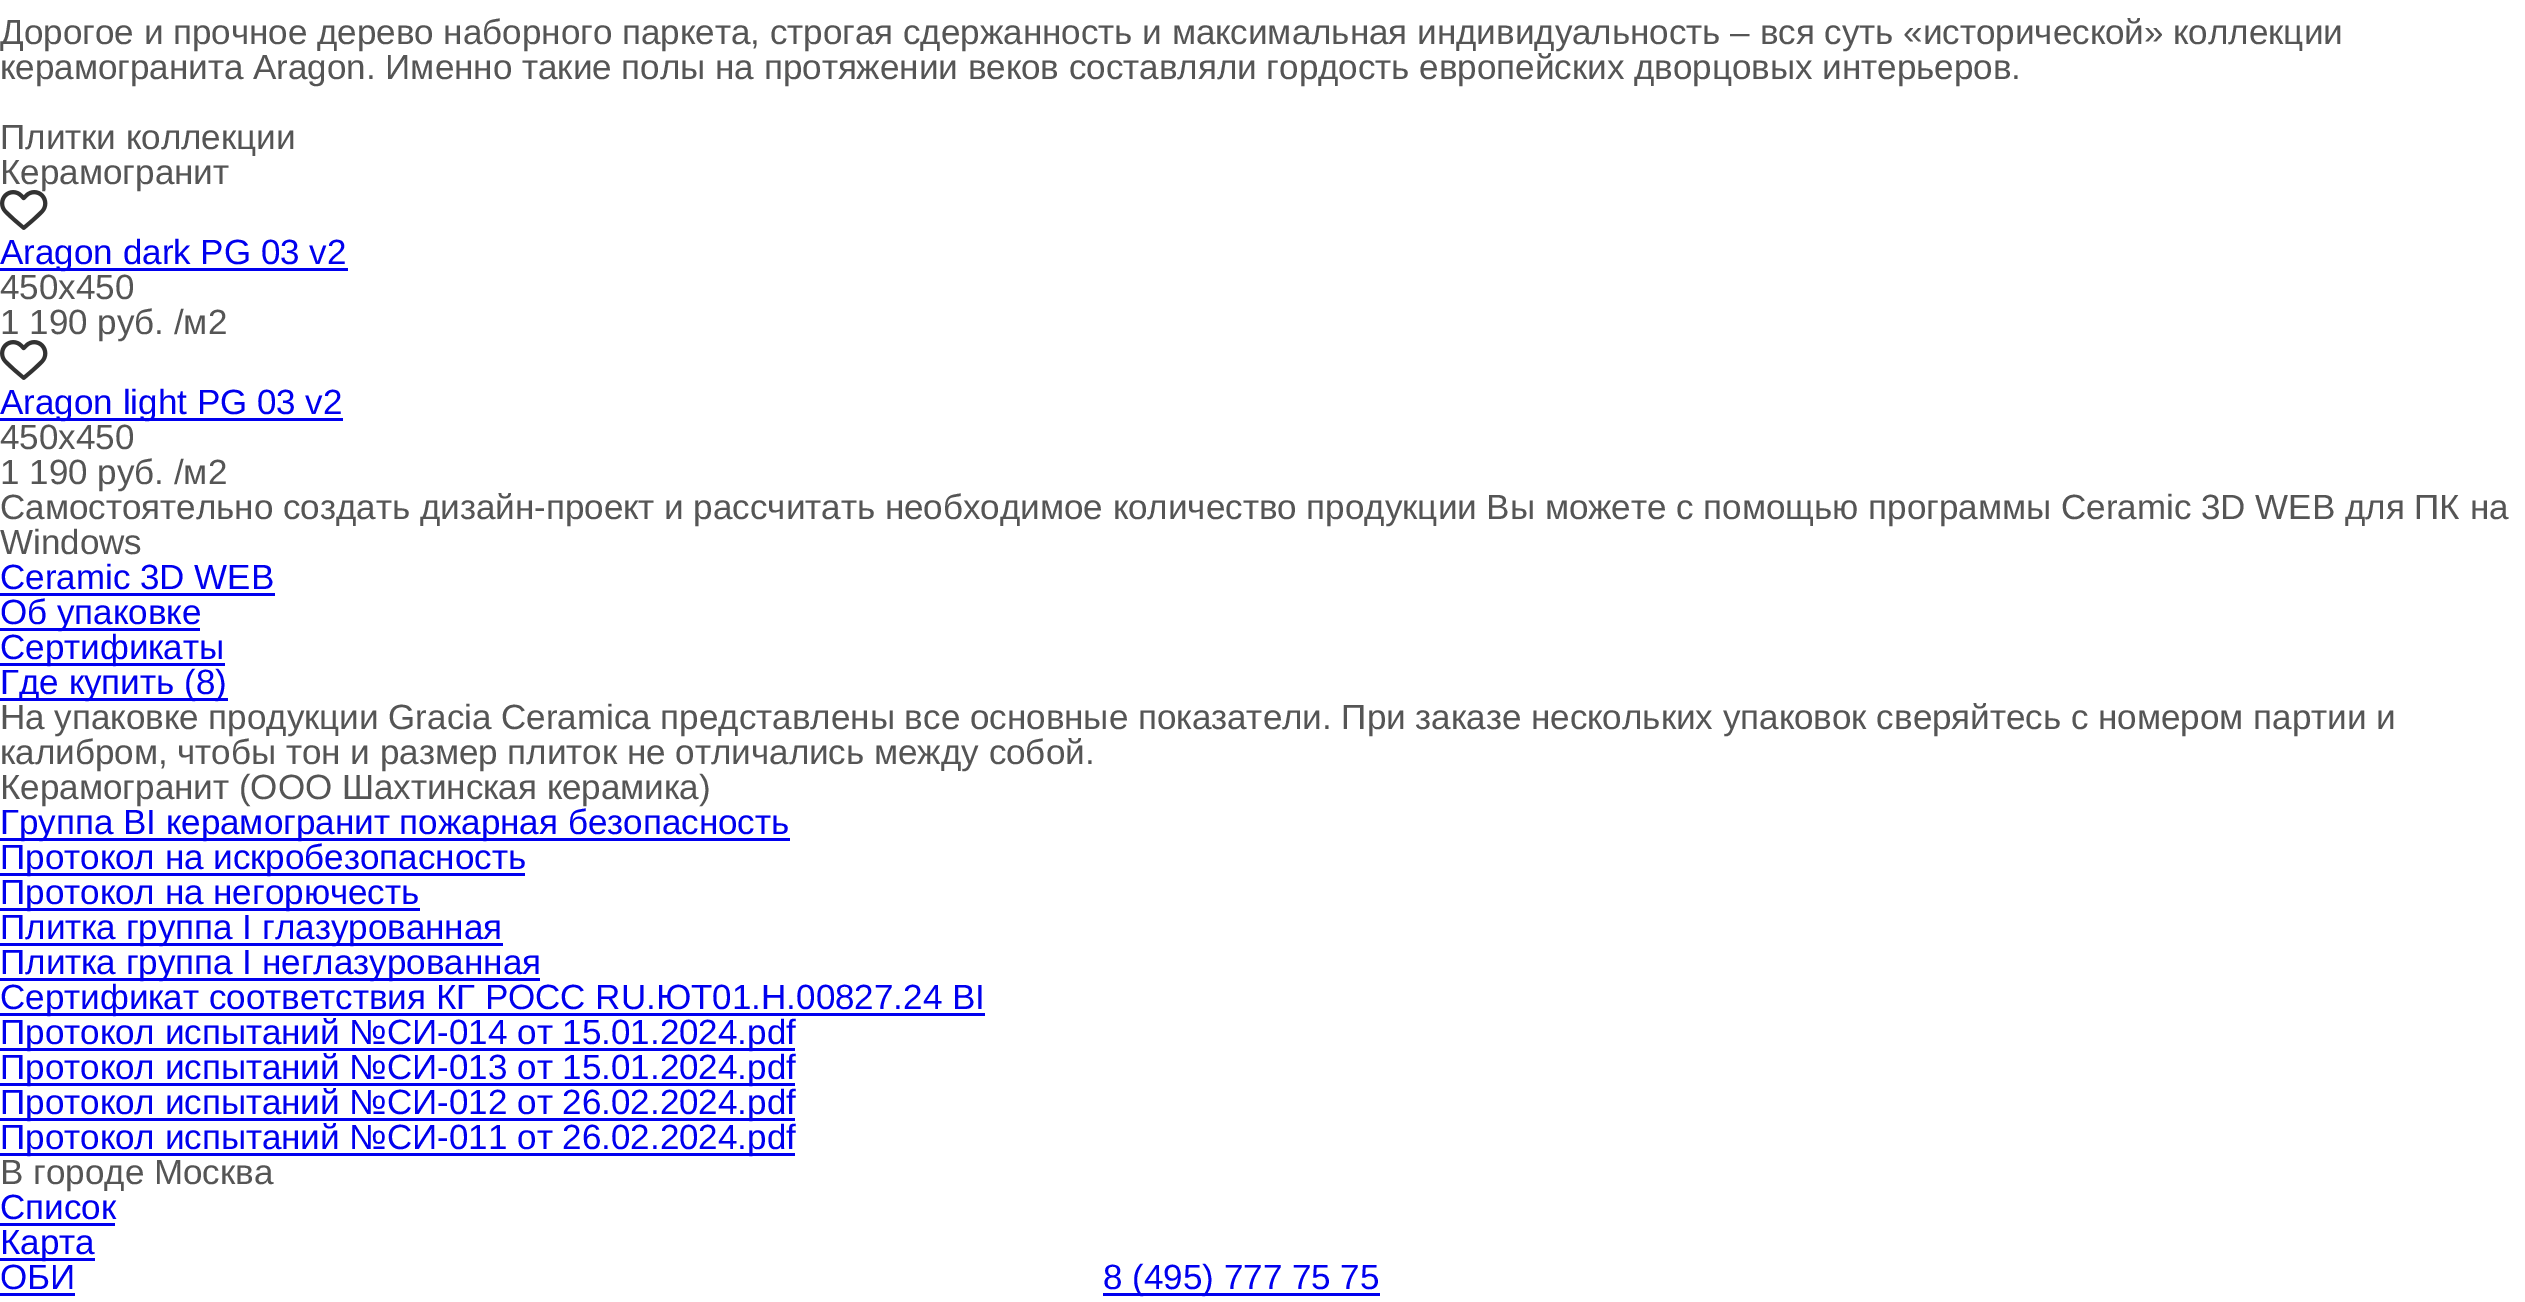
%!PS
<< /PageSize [2525 1302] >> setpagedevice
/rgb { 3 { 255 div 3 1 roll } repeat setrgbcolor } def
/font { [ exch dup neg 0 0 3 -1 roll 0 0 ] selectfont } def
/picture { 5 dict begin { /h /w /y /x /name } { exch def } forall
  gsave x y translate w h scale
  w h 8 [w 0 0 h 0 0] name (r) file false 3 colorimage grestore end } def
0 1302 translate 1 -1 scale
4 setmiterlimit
255 255 255 rgb
0 0 2525 1302 rectfill
[
  [0 268 348 3 0 0 238]
  [0 418 343 3 0 0 238]
  [0 593 275 3 0 0 238]
  [0 628 200 3 0 0 238]
  [0 663 225 3 0 0 238]
  [0 698 228 3 0 0 238]
  [0 838 790 3 0 0 238]
  [0 873 525 3 0 0 238]
  [0 908 420 3 0 0 238]
  [0 943 503 3 0 0 238]
  [0 978 540 3 0 0 238]
  [0 1013 985 3 0 0 238]
  [0 1048 795 3 0 0 238]
  [0 1083 795 3 0 0 238]
  [0 1118 795 3 0 0 238]
  [0 1153 795 3 0 0 238]
  [0 1223 115 3 0 0 238]
  [0 1258 95 3 0 0 238]
  [0 1293 75 3 0 0 238]
  [1103 1293 277 3 0 0 238]
] { aload pop rgb rectfill } forall
/LiberationSans-Regular 35 font
85 85 85 rgb
[
  [(Дорогое и прочное дерево наборного паркета, строгая сдержанность и максимальная индивидуальность – вся суть «исторической» коллекции) 0 44]
  [(керамогранита Aragon. Именно такие полы на протяжении веков составляли гордость европейских дворцовых интерьеров.) 0 79]
  [(Плитки коллекции) 0 149]
  [(Керамогранит) 0 184]
] { aload pop moveto show } forall
(img/1.rgb) 0 190 48 40 picture
0 0 238 rgb
0 264 moveto (Aragon dark PG 03 v2) show
85 85 85 rgb
0 299 moveto (450х450) show
0 334 moveto (1 190 руб. /м2) show
(img/2.rgb) 0 340 48 40 picture
0 0 238 rgb
0 414 moveto (Aragon light PG 03 v2) show
85 85 85 rgb
[
  [(450х450) 0 449]
  [(1 190 руб. /м2) 0 484]
  [(Cамостоятельно создать дизайн-проект и рассчитать необходимое количество продукции Вы можете с помощью программы Ceramic 3D WEB для ПК на) 0 519]
  [(Windows) 0 554]
] { aload pop moveto show } forall
0 0 238 rgb
[
  [(Ceramic 3D WEB) 0 589]
  [(Об упаковке) 0 624]
  [(Сертификаты) 0 659]
  [(Где купить \(8\)) 0 694]
] { aload pop moveto show } forall
85 85 85 rgb
[
  [(На упаковке продукции Gracia Ceramica представлены все основные показатели. При заказе нескольких упаковок сверяйтесь с номером партии и) 0 729]
  [(калибром, чтобы тон и размер плиток не отличались между собой.) 0 764]
  [(Керамогранит \(ООО Шахтинская керамика\)) 0 799]
] { aload pop moveto show } forall
0 0 238 rgb
[
  [(Группа ВI керамогранит пожарная безопасность) 0 834]
  [(Протокол на искробезопасность) 0 869]
  [(Протокол на негорючесть) 0 904]
  [(Плитка группа I глазурованная) 0 939]
  [(Плитка группа I неглазурованная) 0 974]
  [(Сертификат соответствия КГ РОСС RU.ЮТ01.Н.00827.24 ВI) 0 1009]
  [(Протокол испытаний №СИ-014 от 15.01.2024.pdf) 0 1044]
  [(Протокол испытаний №СИ-013 от 15.01.2024.pdf) 0 1079]
  [(Протокол испытаний №СИ-012 от 26.02.2024.pdf) 0 1114]
  [(Протокол испытаний №СИ-011 от 26.02.2024.pdf) 0 1149]
] { aload pop moveto show } forall
85 85 85 rgb
0 1184 moveto (В городе Москва) show
0 0 238 rgb
[
  [(Список) 0 1219]
  [(Карта) 0 1254]
  [(ОБИ) 0 1289]
  [(8 \(495\) 777 75 75) 1103 1289]
] { aload pop moveto show } forall
showpage
